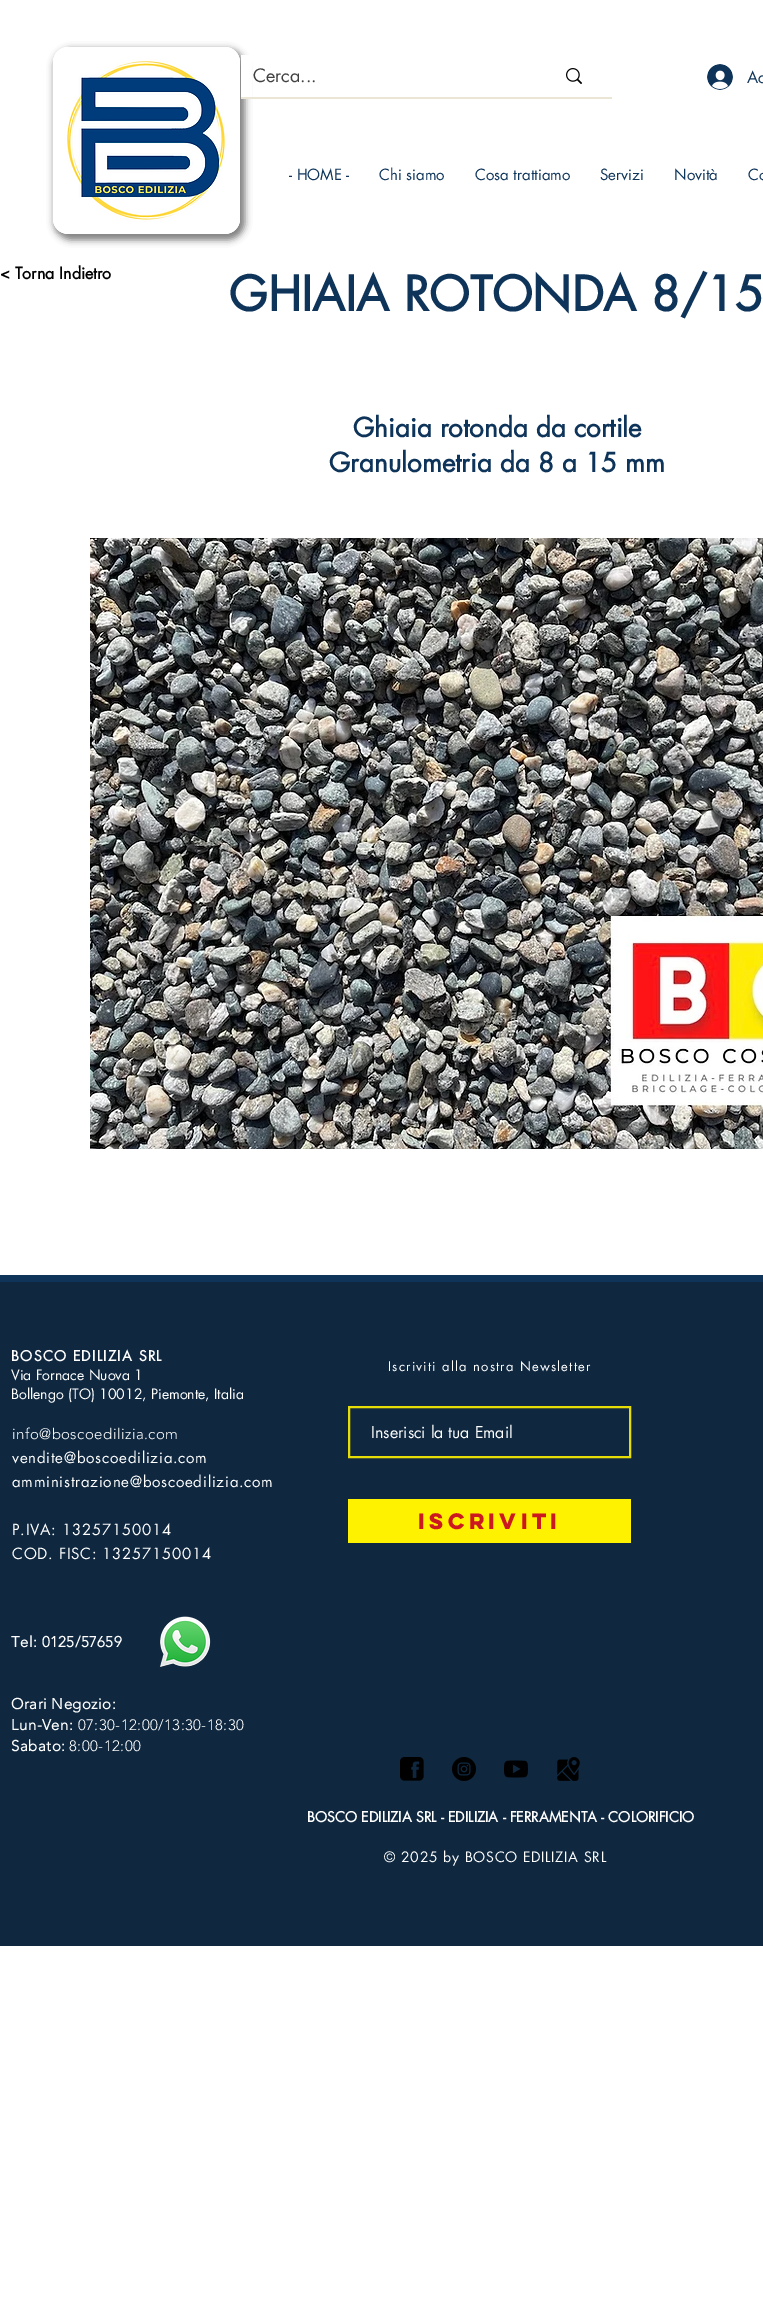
%!PS
<< /PageSize [763 2321] /PageUsesTransparency true >> setpagedevice
/rgb { 3 { 255 div 3 1 roll } repeat setrgbcolor } def
/font { [ exch dup neg 0 0 3 -1 roll 0 0 ] selectfont } def
/alpha { dup .setfillconstantalpha .setstrokeconstantalpha } def
/roundrect { 5 dict begin { /r /h /w /y /x } { exch def } forall
  x r add y moveto x w add y 2 copy h add r arct x w add y h add x 1 index r arct
  x y h add x y r arct x y 2 copy exch w add exch r arct closepath end } def
/shadow { 12 dict begin { /a /b /q /h /w /y /x } { exch def } forall gsave /was 0 def
  9 -2 -9 { dup b mul 4 div /e exch def 1 sub .425 mul 2.718 exch exp 1 add a .99 .min exch div /now exch def
    1 1 now sub 1 was sub div sub alpha /was now def
    w h .min e 2 mul add 0 gt { x e sub y e sub w e 2 mul add h e 2 mul add
      q e add b .6 mul add w h .min 2 div e add .min 0 .max roundrect fill } if } for grestore end } def
/picture { 5 dict begin { /h /w /y /x /name } { exch def } forall
  gsave x y translate w h scale
  w h 8 [w 0 0 h 0 0] name (r) file false 3 colorimage grestore end } def
0 .pushpdf14devicefilter
0 2321 translate 1 -1 scale
4 setmiterlimit
255 255 255 rgb
0 0 763 2321 rectfill
0 0 0 rgb
54 49 191 191 17 3.5 0.5 shadow
255 255 255 rgb
53 47 187 187 15 roundrect fill
(img/1.rgb) 53 47 187 187 picture
235 229 214 rgb
241 97 371 2 rectfill
255 255 255 rgb
241 55 11 42 rectfill
(img/2.rgb) 566 68 16 16 picture
(img/3.rgb) 707 64 26 26 picture
(img/4.rgb) 90 538 673 611 picture
14 52 90 rgb
0 1275 763 7 rectfill
15 40 64 rgb
0 1282 763 664 rectfill
231 221 6 rgb
2 setlinewidth
349 1407 281 50 rectstroke
255 242 0 rgb
348 1499 283 44 rectfill
(img/5.rgb) 159 1616 52 52 picture
(img/6.rgb) 400 1757 24 24 picture
(img/7.rgb) 452 1757 24 24 picture
(img/8.rgb) 504 1760 24 18 picture
(img/9.rgb) 557 1757 23 24 picture
/futura-Regular 18 font
65 65 65 rgb
253 82 moveto (Cerca...) show
/futura-Regular 16 font
14 52 90 rgb
747 83 moveto (Ac) show
/futura-Regular 15 font
[
  [(- HOME -) 289 180]
  [(Chi siamo) 379 180]
  [(Cosa trattiamo) 475 180]
  [(Servizi) 600 180]
  [(Novità) 674 180]
  [(Co) 748 180]
] { aload pop moveto show } forall
/futura-Bold 16 font
0 0 0 rgb
0 279 moveto (< Torna Indietro) show
/futura-Bold 47 font
14 52 90 rgb
229 311 moveto (GHIAIA ROTONDA 8/15) show
/futura-Bold 26 font
353 437 moveto (Ghiaia rotonda da cortile) show
329 472 moveto (Granulometria da 8 a 15 mm) show
/futura-Bold 14 font
255 255 255 rgb
11 1361 moveto 1.25 0 (BOSCO EDILIZIA SRL) ashow
/futura-Regular 14 font
11 1380 moveto (Via Fornace Nuova 1) show
11 1399 moveto (Bollengo \(TO\) 10012, Piemonte, Italia) show
/futura-Regular 13 font
388 1371 moveto 1.2 0 (Iscriviti alla nostra Newsletter) ashow
/futura-Regular 16 font
371 1438 moveto (Inserisci la tua Email) show
/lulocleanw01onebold-Bold 20 font
204 25 31 rgb
418 1529 moveto (Iscriviti) show
/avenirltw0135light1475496-Light 15 font
255 255 255 rgb
12 1439 moveto 0.45 0 (info@boscoedilizia.com) ashow
/futura-Regular 15 font
12 1463 moveto 0.75 0 (vendite@boscoedilizia.com) ashow
12 1487 moveto 0.75 0 (amministrazione@boscoedilizia.com) ashow
12 1535 moveto 0.75 0 (P.IVA: 13257150014) ashow
12 1559 moveto 0.75 0 (COD. FISC: 13257150014) ashow
/avenirltw0135light1475496-Bold 15 font
11 1647 moveto 0.45 0 (Tel: 0125/57659) ashow
11 1709 moveto 0.45 0 (Orari Negozio:) ashow
11 1730 moveto 0.45 0 (Lun-Ven:) ashow
/avenirltw0135light1475496-Light 15 font
78 1730 moveto 0.45 0 (07:30-12:00/13:30-18:30) ashow
/avenirltw0135light1475496-Bold 15 font
11 1751 moveto 0.5 0 (Sabato:) ashow
/avenirltw0135light1475496-Light 15 font
69 1751 moveto 0.5 0 (8:00-12:00) ashow
/futura-Bold 14 font
307 1822 moveto (BOSCO EDILIZIA SRL - EDILIZIA - FERRAMENTA - COLORIFICIO) show
/futura-Regular 14 font
384 1862 moveto 0.7 0 (© 2025 by BOSCO EDILIZIA SRL) ashow
.poppdf14devicefilter showpage
